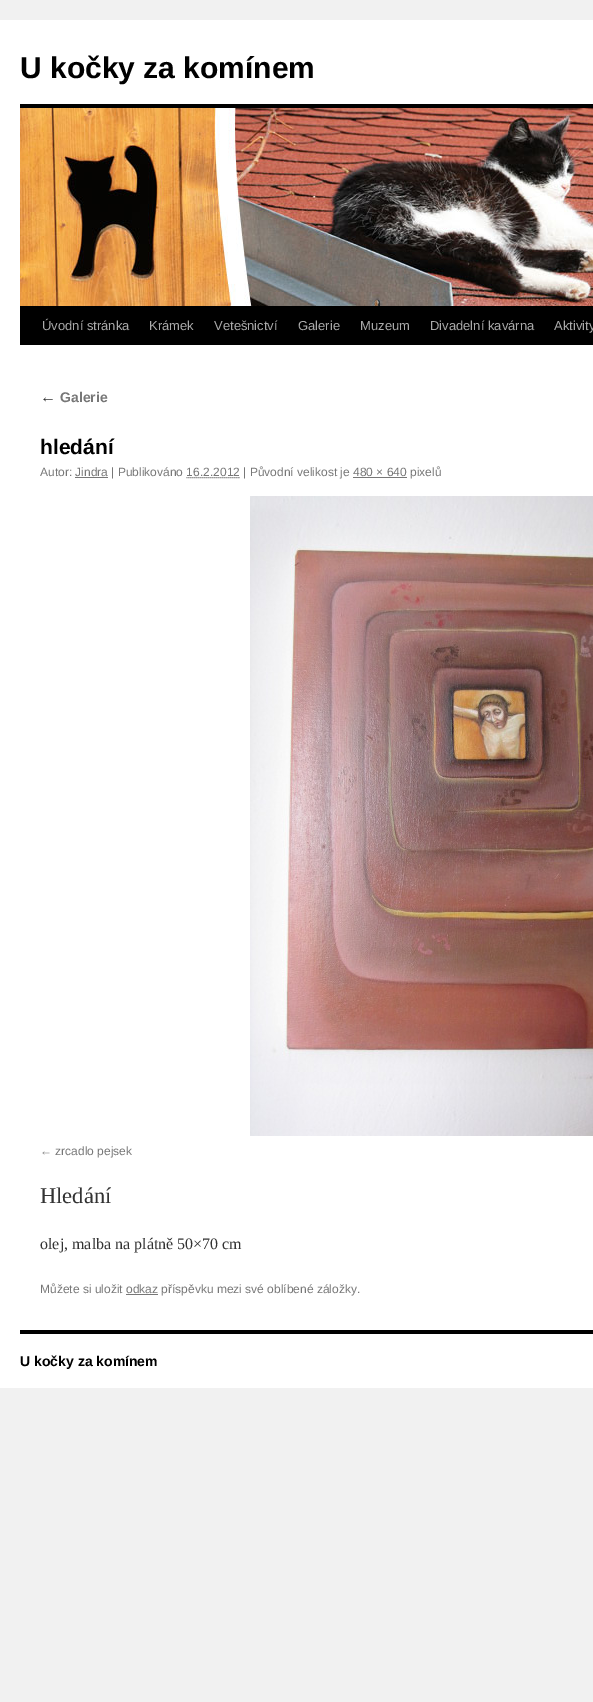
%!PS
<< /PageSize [593 1702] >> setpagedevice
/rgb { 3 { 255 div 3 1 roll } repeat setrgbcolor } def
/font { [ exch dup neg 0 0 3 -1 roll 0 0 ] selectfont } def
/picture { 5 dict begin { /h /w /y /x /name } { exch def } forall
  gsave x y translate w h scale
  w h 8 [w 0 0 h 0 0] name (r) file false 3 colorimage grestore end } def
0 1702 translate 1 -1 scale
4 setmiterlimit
241 241 241 rgb
0 0 593 1702 rectfill
[
  [0 20 593 1368 255 255 255]
  [20 104 573 4 0 0 0]
  [20 306 573 39 0 0 0]
] { aload pop rgb rectfill } forall
(img/1.rgb) 20 108 573 198 picture
119 119 119 rgb
75 477 33 1 rectfill
[1 1] 0 setdash
186.5 477.5 moveto 240 477.5 lineto stroke
353 477 54 1 rectfill
(img/2.rgb) 250 496 343 640 picture
126 1294 32 1 rectfill
0 0 0 rgb
20 1330 573 4 rectfill
/LiberationSans-Bold 30 font
20 78 moveto (U kočky za komínem) show
/LiberationSans-Regular 13 font
170 170 170 rgb
[
  [(Úvodní stránka) 42 330]
  [(Krámek) 149 330]
  [(Vetešnictví) 214 330]
  [(Galerie) 298 330]
  [(Muzeum) 360 330]
  [(Divadelní kavárna) 430 330]
  [(Aktivity) 554 330]
] { aload pop moveto show } forall
/LiberationSerif-Italic 16 font
51 51 51 rgb
40 402 moveto (←) show
/LiberationSans-Bold 14 font
119 119 119 rgb
60 402 moveto (Galerie) show
/LiberationSans-Bold 21 font
0 0 0 rgb
40 454 moveto (hledání) show
/LiberationSans-Regular 12 font
119 119 119 rgb
40 476 moveto (Autor: Jindra | Publikováno 16.2.2012 | Původní velikost je 480 × 640 pixelů) show
40 1155 moveto (← zrcadlo pejsek) show
/LiberationSerif-Regular 22.5 font
51 51 51 rgb
40 1203 moveto (Hledání) show
/LiberationSerif-Regular 16 font
40 1249 moveto (olej, malba na plátně 50×70 cm) show
/LiberationSans-Regular 12 font
119 119 119 rgb
40 1293 moveto (Můžete si uložit odkaz příspěvku mezi své oblíbené záložky.) show
/LiberationSans-Bold 14 font
0 0 0 rgb
20 1366 moveto (U kočky za komínem) show
showpage
